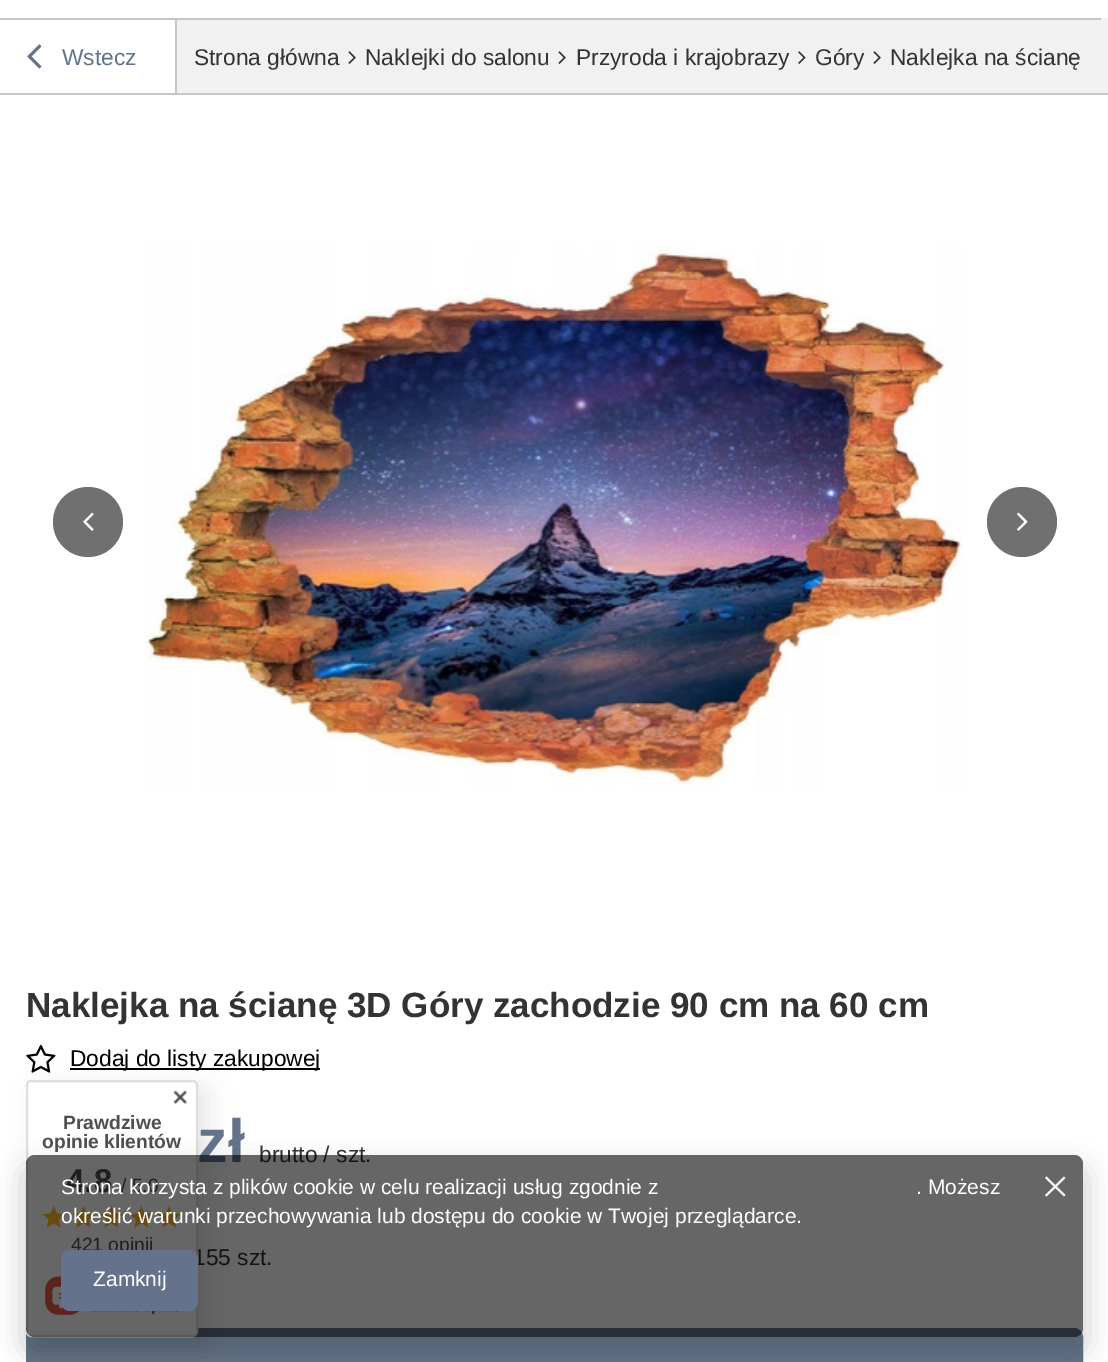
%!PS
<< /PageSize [1108 1362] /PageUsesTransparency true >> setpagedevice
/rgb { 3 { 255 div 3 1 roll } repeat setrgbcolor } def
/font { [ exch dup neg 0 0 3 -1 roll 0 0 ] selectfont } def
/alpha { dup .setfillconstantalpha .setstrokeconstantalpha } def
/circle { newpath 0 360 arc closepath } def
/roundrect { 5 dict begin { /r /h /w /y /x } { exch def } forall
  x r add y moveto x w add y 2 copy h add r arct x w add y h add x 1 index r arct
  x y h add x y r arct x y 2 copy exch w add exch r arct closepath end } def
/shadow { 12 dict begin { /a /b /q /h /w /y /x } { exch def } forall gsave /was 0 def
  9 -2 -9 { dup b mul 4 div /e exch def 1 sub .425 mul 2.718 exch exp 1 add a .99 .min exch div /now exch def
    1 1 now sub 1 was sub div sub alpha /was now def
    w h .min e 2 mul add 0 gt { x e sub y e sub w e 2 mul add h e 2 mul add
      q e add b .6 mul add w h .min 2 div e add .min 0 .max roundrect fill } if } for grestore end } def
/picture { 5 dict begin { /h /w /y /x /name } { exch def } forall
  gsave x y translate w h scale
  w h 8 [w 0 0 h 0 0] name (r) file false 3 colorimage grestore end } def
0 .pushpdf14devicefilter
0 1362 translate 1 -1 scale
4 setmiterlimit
255 255 255 rgb
0 0 1108 1362 rectfill
[
  [177 18 931 75 241 241 241]
  [175 19 2 76 196 199 200]
  [0 18 1101 2 196 199 200]
] { aload pop rgb rectfill } forall
(img/1.rgb) 27 44 15 25 picture
(img/2.rgb) 348 51 8 13 picture
(img/2.rgb) 558 51 8 13 picture
(img/3.rgb) 798 51 8 13 picture
(img/2.rgb) 873 51 8 13 picture
0 93 1108 2 rectfill
112 112 112 rgb
88 522 35 circle fill
(img/4.rgb) 83 512 11 19 picture
(img/5.rgb) 145 244 818 547 picture
1022 522 35 circle fill
(img/6.rgb) 1017 512 11 19 picture
(img/7.rgb) 26 1044 30 29 picture
0 0 0 rgb
70 1068 250 2 rectfill
100 115 139 rgb
27 1329 1055 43 8 roundrect gsave fill grestore
2 setlinewidth
stroke
0 0 0 rgb
35 1089 172 257 5 13 0.1 shadow
/LiberationSans-Regular 22.75 font
100 115 139 rgb
62 65 moveto (Wstecz) show
51 51 51 rgb
[
  [(Strona główna) 194 65]
  [(Naklejki do salonu) 365 65]
  [(Przyroda i krajobrazy) 576 65]
  [(Góry) 815 65]
  [(Naklejka na ścianę) 890 65]
] { aload pop moveto show } forall
/LiberationSans-Bold 35 font
26 1017 moveto (Naklejka na ścianę 3D Góry zachodzie 90 cm na 60 cm) show
/LiberationSans-Regular 22.75 font
0 0 0 rgb
70 1066 moveto (Dodaj do listy zakupowej) show
/LiberationSans-Bold 61 font
100 115 139 rgb
197 1162 moveto (zł) show
/LiberationSans-Regular 22.75 font
51 51 51 rgb
259 1162 moveto (brutto / szt.) show
193 1265 moveto (155 szt.) show
255 255 255 rgb
27 1081 170 255 4 roundrect gsave fill grestore
222 222 222 rgb
stroke
(img/8.rgb) 173 1090 14 14 picture
/LiberationSans-Bold 19.25 font
79 79 79 rgb
63 1129 moveto (Prawdziwe) show
42 1148 moveto (opinie klientów) show
/LiberationSans-Bold 33 font
66 1192 moveto (4.8) show
/LiberationSans-Regular 19.25 font
121 1192 moveto (/ 5.0) show
(img/9.rgb) 42 1205 24 23 picture
(img/10.rgb) 72 1205 23 23 picture
(img/10.rgb) 100 1205 23 23 picture
(img/11.rgb) 130 1205 22 23 picture
(img/12.rgb) 158 1205 23 23 picture
71 1251 moveto (421 opinii) show
(img/13.rgb) 45 1276 133 39 picture
gsave
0 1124 moveto 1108 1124 lineto 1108 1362 lineto 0 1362 lineto closepath 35 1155 moveto 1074 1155 lineto 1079 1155 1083 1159 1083 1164 curveto 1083 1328 lineto 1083 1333 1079 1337 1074 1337 curveto 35 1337 lineto 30 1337 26 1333 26 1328 curveto 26 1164 lineto 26 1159 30 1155 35 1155 curveto closepath eoclip newpath
0 0 0 rgb
21 1164 1068 192 14 13 0.15 shadow
grestore
0.6 alpha
0 0 0 rgb
26 1155 1057 182 9 roundrect fill
/LiberationSans-Regular 21 font
1 alpha
255 255 255 rgb
[
  [(Strona korzysta z plików cookie w celu realizacji usług zgodnie z) 61 1194]
  [(. Możesz) 916 1194]
  [(określić warunki przechowywania lub dostępu do cookie w Twojej przeglądarce.) 61 1223]
] { aload pop moveto show } forall
100 115 139 rgb
61 1250 137 61 9 roundrect fill
255 255 255 rgb
93 1286 moveto (Zamknij) show
(img/14.rgb) 1045 1176 21 21 picture
.poppdf14devicefilter showpage
